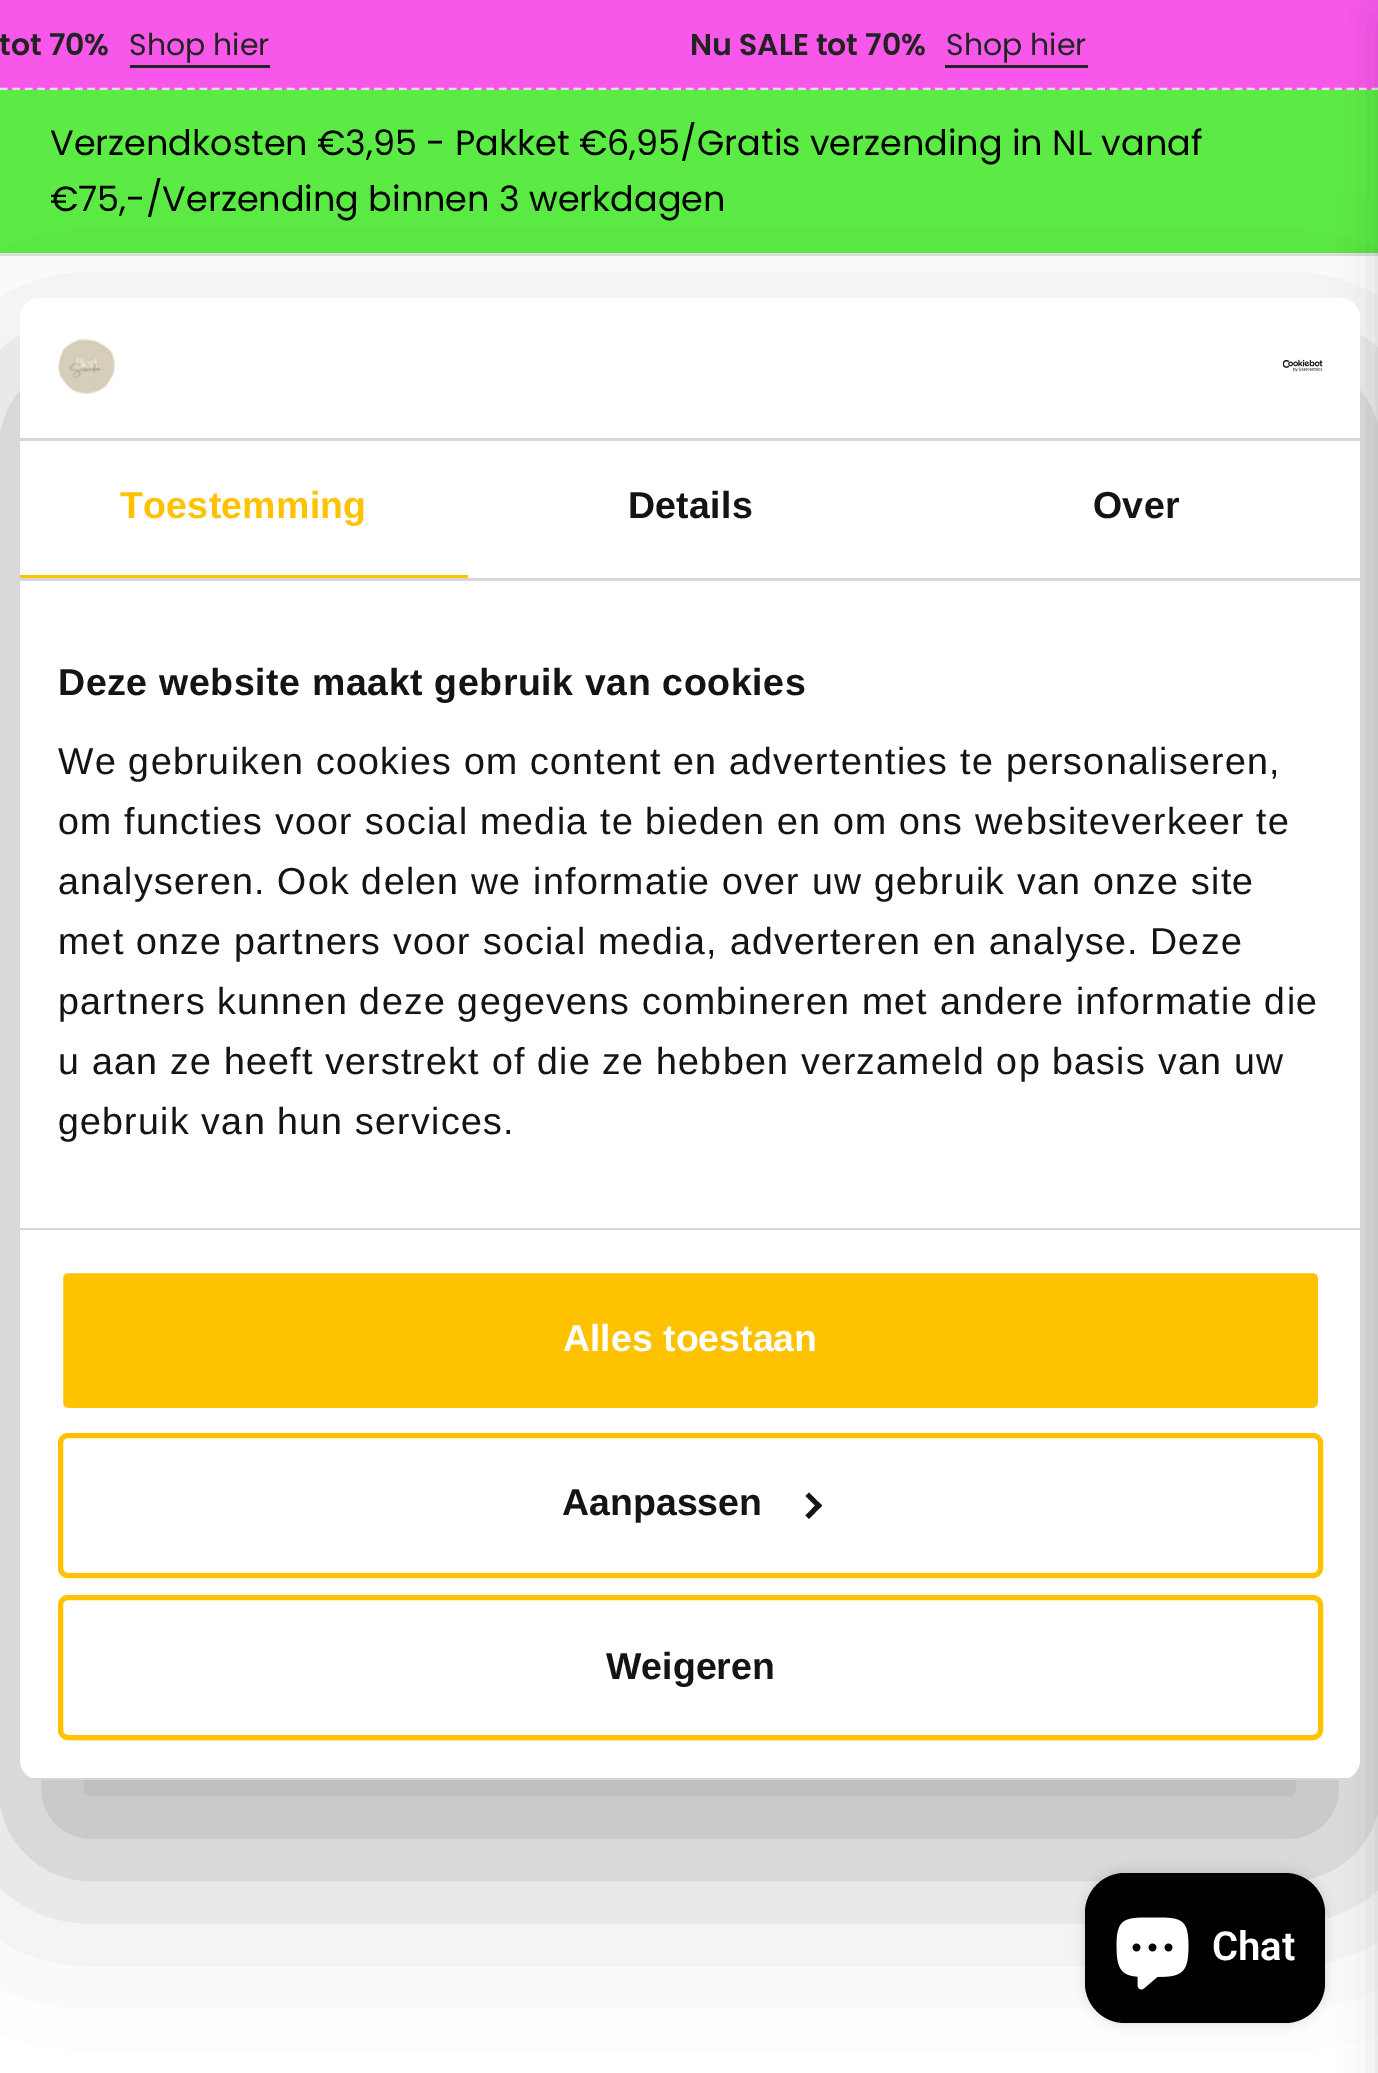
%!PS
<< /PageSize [1378 2073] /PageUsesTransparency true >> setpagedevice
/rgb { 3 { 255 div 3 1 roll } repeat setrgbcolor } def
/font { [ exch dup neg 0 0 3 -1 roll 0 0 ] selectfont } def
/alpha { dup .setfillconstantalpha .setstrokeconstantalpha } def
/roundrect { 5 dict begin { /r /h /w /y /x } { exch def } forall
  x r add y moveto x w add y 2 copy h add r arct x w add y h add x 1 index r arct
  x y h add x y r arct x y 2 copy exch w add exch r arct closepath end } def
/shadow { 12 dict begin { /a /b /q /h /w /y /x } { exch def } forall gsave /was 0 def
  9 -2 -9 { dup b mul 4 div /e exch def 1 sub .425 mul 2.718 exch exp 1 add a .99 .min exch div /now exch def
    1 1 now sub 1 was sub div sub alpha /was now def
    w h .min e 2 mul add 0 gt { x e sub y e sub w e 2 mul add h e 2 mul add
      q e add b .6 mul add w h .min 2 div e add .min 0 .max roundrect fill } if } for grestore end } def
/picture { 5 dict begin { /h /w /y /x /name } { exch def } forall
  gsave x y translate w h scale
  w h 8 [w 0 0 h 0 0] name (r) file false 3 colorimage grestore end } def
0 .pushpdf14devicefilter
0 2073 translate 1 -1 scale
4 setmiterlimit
255 255 255 rgb
0 0 1378 2073 rectfill
247 88 233 rgb
0 0 1378 90 rectfill
225 225 225 rgb
2.5 setlinewidth
[7.5 4.97] 0 setdash
0 89 moveto 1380 89 lineto stroke
[
  [130 65 140 3 34 34 34]
  [945 65 143 3 34 34 34]
  [0 90 1378 163 92 235 69]
  [0 253 1378 3 225 225 225]
] { aload pop rgb rectfill } forall
0 0 0 rgb
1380 20 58 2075 0 20 0.15 shadow
gsave
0 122 moveto 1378 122 lineto 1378 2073 lineto 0 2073 lineto closepath 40 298 moveto 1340 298 lineto 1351 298 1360 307 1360 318 curveto 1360 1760 lineto 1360 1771 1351 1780 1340 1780 curveto 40 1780 lineto 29 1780 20 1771 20 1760 curveto 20 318 lineto 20 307 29 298 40 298 curveto closepath eoclip newpath
20 378 1340 1482 20 85 0.3 shadow
grestore
255 255 255 rgb
20 298 1340 1482 20 roundrect fill
214 214 214 rgb
20 438 1340 3 rectfill
(img/1.rgb) 57 338 58 56 picture
(img/2.rgb) 1283 359 40 13 picture
[
  [20 578 1340 3 214 214 214]
  [20 575 448 3 255 194 0]
  [20 1228 1340 2 214 214 214]
] { aload pop rgb rectfill } forall
gsave
20 298 1340 1482 20 roundrect clip newpath
31 1778 1318 2 rectfill
grestore
255 194 0 rgb
60.5 1270.5 1260 140 7.5 roundrect gsave fill grestore
255 255 255 rgb
5 setlinewidth
[] 0 setdash
stroke
255 194 0 rgb
60.5 1435.5 1260 140 7.5 roundrect stroke
20 20 20 rgb
809 1492.5 moveto 822 1505.5 lineto 818.5 1509 lineto 805.5 1496 lineto closepath fill
818.5 1502 moveto 822 1505.5 lineto 809 1519 lineto 805.5 1515.5 lineto closepath fill
255 194 0 rgb
60.5 1597.5 1260 140 7.5 roundrect stroke
0 0 0 rgb
1085 1873 240 150 40 6 0.15 shadow
1085 1873 240 150 40 roundrect fill
(img/3.rgb) 1116 1917 73 73 picture
/Poppins-SemiBold 30 font
34 34 34 rgb
-1 55 moveto (tot 70%) show
/Poppins-Regular 30 font
129 55 moveto (Shop hier) show
/Poppins-SemiBold 30 font
690 55 moveto (Nu SALE tot 70%) show
/Poppins-Regular 30 font
946 55 moveto (Shop hier) show
/Poppins-Regular 35 font
0 0 0 rgb
50 155 moveto (Verzendkosten €3,95 - Pakket €6,95/Gratis verzending in NL vanaf) show
50 211 moveto (€75,-/Verzending binnen 3 werkdagen) show
/LiberationSans-Bold 37.5 font
255 194 0 rgb
120 518 moveto 0.25 0 (Toestemming) ashow
20 20 20 rgb
628 518 moveto 0.25 0 (Details) ashow
1093 518 moveto 0.25 0 (Over) ashow
58 695 moveto 0.6 0 (Deze website maakt gebruik van cookies) ashow
/LiberationSans-Regular 37.5 font
58 774 moveto 1.25 0 (We gebruiken cookies om content en advertenties te personaliseren,) ashow
58 834 moveto 1.25 0 (om functies voor social media te bieden en om ons websiteverkeer te) ashow
58 894 moveto 1.25 0 (analyseren. Ook delen we informatie over uw gebruik van onze site) ashow
58 954 moveto 1.25 0 (met onze partners voor social media, adverteren en analyse. Deze) ashow
58 1014 moveto 1.25 0 (partners kunnen deze gegevens combineren met andere informatie die) ashow
58 1074 moveto 1.25 0 (u aan ze heeft verstrekt of die ze hebben verzameld op basis van uw) ashow
58 1134 moveto 1.25 0 (gebruik van hun services.) ashow
/LiberationSans-Bold 37.5 font
255 255 255 rgb
563 1351 moveto (Alles toestaan) show
20 20 20 rgb
562 1515 moveto (Aanpassen) show
606 1679 moveto (Weigeren) show
/Roboto-SemiBold 40 font
255 255 255 rgb
1212 1960 moveto (Chat) show
.poppdf14devicefilter showpage
